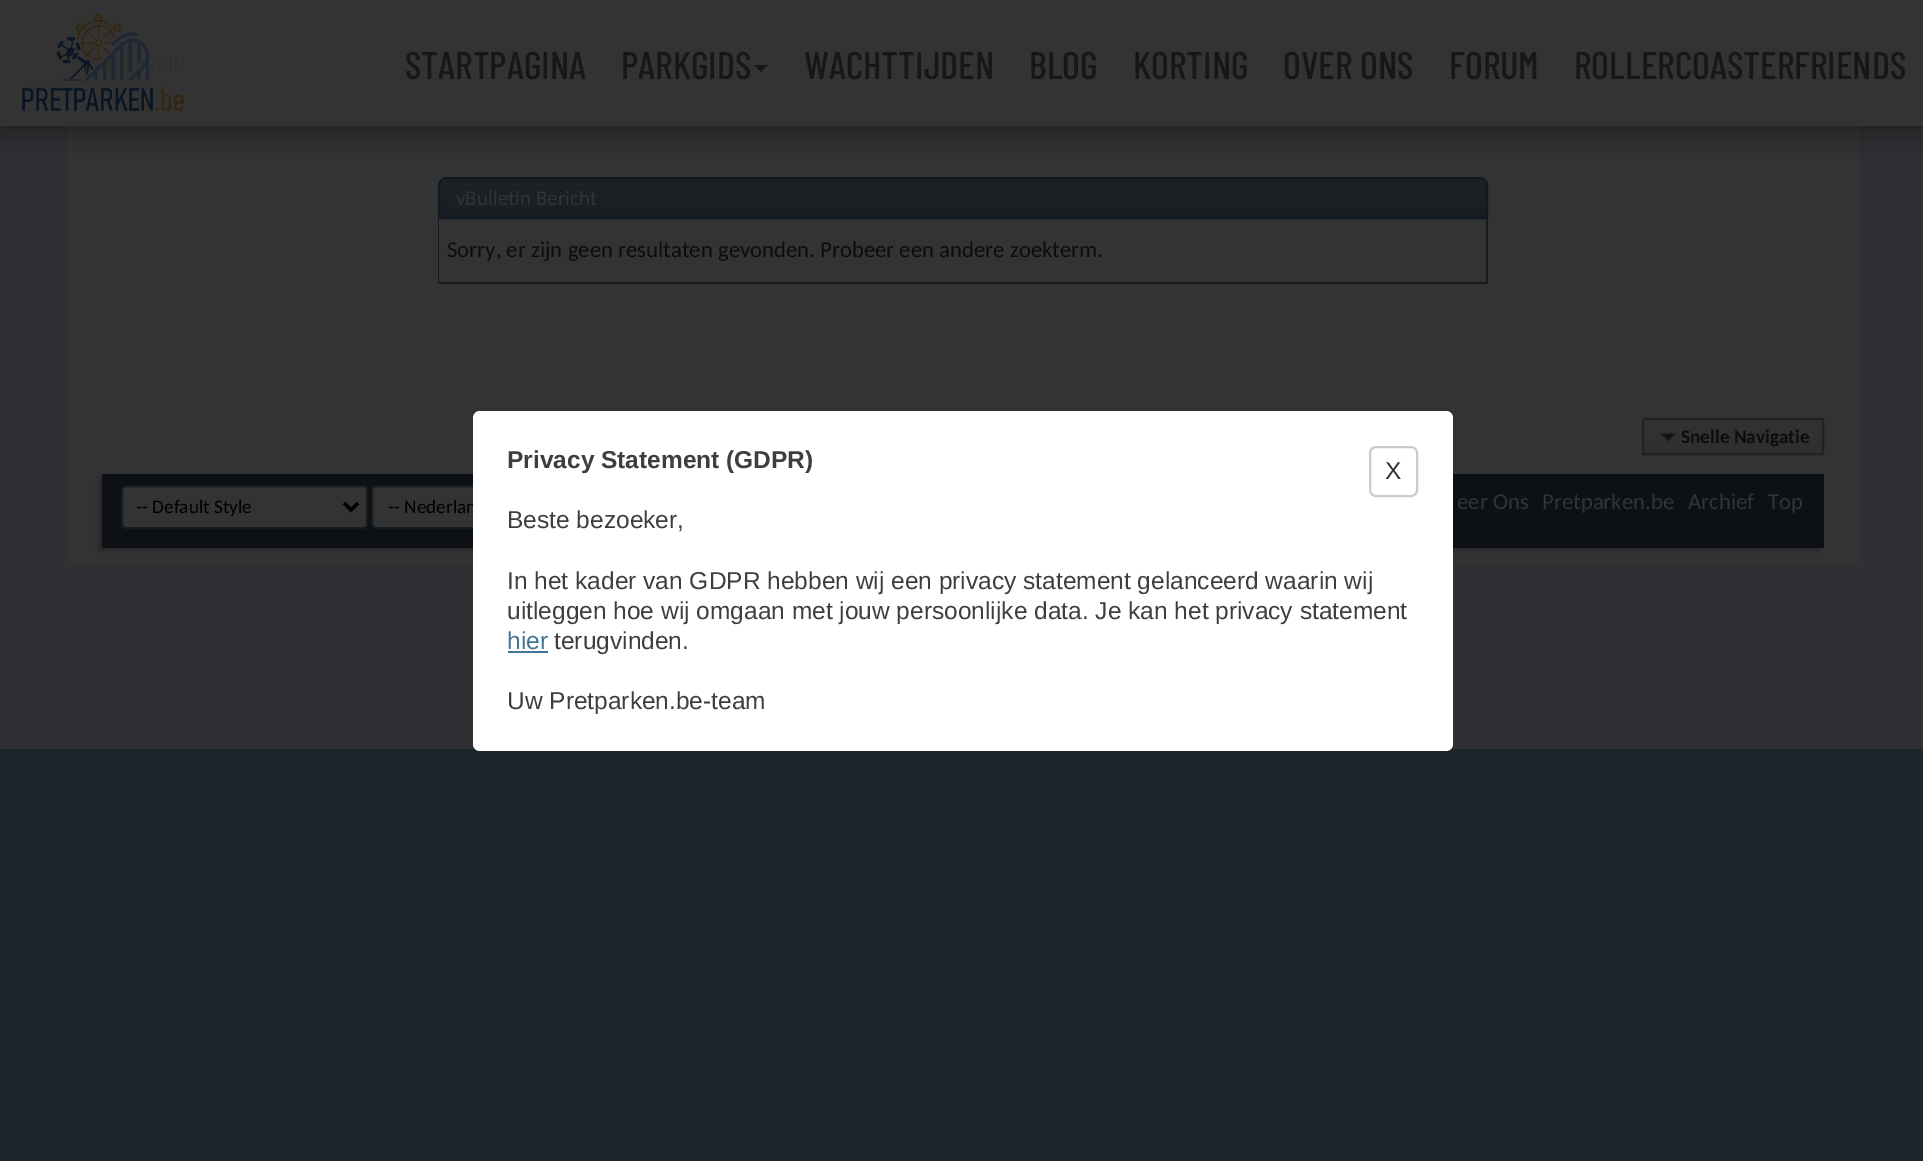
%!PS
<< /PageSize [1923 1161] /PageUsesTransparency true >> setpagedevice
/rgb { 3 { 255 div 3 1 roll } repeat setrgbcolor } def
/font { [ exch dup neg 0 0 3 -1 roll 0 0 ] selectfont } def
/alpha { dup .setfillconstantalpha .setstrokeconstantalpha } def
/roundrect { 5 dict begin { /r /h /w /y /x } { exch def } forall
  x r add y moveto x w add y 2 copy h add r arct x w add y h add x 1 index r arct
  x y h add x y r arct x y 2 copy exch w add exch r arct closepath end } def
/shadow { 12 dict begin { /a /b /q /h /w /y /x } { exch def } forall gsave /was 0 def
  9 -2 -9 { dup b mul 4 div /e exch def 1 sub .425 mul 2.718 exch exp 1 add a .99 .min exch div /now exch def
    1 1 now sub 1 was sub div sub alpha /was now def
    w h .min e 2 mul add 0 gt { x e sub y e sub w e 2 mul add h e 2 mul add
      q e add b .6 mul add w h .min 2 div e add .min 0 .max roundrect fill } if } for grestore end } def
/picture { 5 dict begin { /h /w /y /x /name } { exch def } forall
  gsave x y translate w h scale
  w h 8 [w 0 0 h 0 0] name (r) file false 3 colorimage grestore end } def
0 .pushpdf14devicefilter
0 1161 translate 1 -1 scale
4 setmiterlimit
29 38 44 rgb
0 0 1923 1161 rectfill
[
  [0 126 1923 623 46 48 51]
  [0 0 1923 126 51 51 51]
  [67 126 1792 439 51 51 51]
] { aload pop rgb rectfill } forall
(img/2.rgb) 101 53 19 21 picture
23 29 34 rgb
447 177 moveto 1479 177 lineto 1484 177 1488 181 1488 186 curveto 1488 219 lineto 438 219 lineto 438 186 lineto 438 181 442 177 447 177 curveto closepath fill
(img/3.rgb) 438 178 1050 35 picture
18 25 30 rgb
2 setlinewidth
447 178 moveto 1479 178 lineto 1483.5 178 1487 181.5 1487 186 curveto 1487 218 lineto 439 218 lineto 439 186 lineto 439 181.5 442.5 178 447 178 curveto closepath stroke
gsave
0 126 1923 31 rectclip
0 0 0 rgb
0 0 1923 126 0 17.5 0.5 shadow
grestore
(img/1.rgb) 22 13 162 98 picture
23 23 23 rgb
754 65 moveto 768 65 lineto 761 72 lineto closepath fill
[
  [1486 219 2 65 21 29 34]
  [438 282 1050 2 21 29 34]
  [438 219 2 65 21 29 34]
  [439 219 1 63 51 51 51]
  [1644 420 178 33 47 47 47]
] { aload pop rgb rectfill } forall
(img/4.rgb) 1644 420 178 21 picture
34 34 34 rgb
1643 419 180 35 rectstroke
(img/5.rgb) 1660 432 17 11 picture
40 40 40 rgb
98 478 1722 73 0 2 1 shadow
13 17 21 rgb
102 474 1722 74 rectfill
51 51 51 rgb
122 486 245 42 4 roundrect gsave fill grestore
21 29 34 rgb
stroke
0 0 0 rgb
3.5 setlinewidth
344 503 moveto 351 510 lineto 358 503 lineto stroke
51 51 51 rgb
372 486 212 42 4 roundrect gsave fill grestore
21 29 34 rgb
2 setlinewidth
stroke
/BarlowCondensed-Medium 38.5 font
23 23 23 rgb
[
  [(STARTPAGINA) 405 79]
  [(PARKGIDS) 621 79]
  [(WACHTTIJDEN) 804 79]
  [(BLOG) 1029 79]
  [(KORTING) 1133 79]
  [(OVER ONS) 1283 79]
  [(FORUM) 1449 79]
  [(ROLLERCOASTERFRIENDS) 1574 79]
] { aload pop moveto show } forall
/Carlito-Regular 21 font
51 51 51 rgb
456 205 moveto (vBulletin Bericht) show
/Carlito-Regular 22.75 font
12 12 12 rgb
447 257 moveto (Sorry, er zijn geen resultaten gevonden. Probeer een andere zoekterm.) show
/Carlito-Bold 19.25 font
1681 443 moveto (Snelle Navigatie) show
gsave
137 494 194 26 rectclip
/Carlito-Regular 19.25 font
0 0 0 rgb
136 513 moveto (-- Default Style) show
grestore
/Carlito-Regular 19.25 font
0 0 0 rgb
388 513 moveto (-- Nederlan) show
255 255 255 rgb
473 411 980 340 7 roundrect fill
204 204 204 rgb
1370 447 47 49 6 roundrect stroke
/LiberationSans-Regular 24.5 font
51 51 51 rgb
1385 479 moveto (X) show
62 62 62 rgb
507 709 moveto (Uw Pretparken.be-team) show
554 649 moveto (terugvinden.) show
65 115 148 rgb
507 649 moveto (hier) show
508 651 40 2 rectfill
62 62 62 rgb
[
  [(uitleggen hoe wij omgaan met jouw persoonlijke data. Je kan het privacy statement) 507 619]
  [(In het kader van GDPR hebben wij een privacy statement gelanceerd waarin wij) 507 589]
  [(Beste bezoeker,) 507 528]
] { aload pop moveto show } forall
/LiberationSans-Bold 24.5 font
507 468 moveto (Privacy Statement \(GDPR\)) show
/Carlito-Regular 22.75 font
51 51 51 rgb
[
  [(eer Ons) 1457 509]
  [(Pretparken.be) 1542 509]
  [(Archief) 1688 509]
  [(Top) 1768 509]
] { aload pop moveto show } forall
.poppdf14devicefilter showpage
